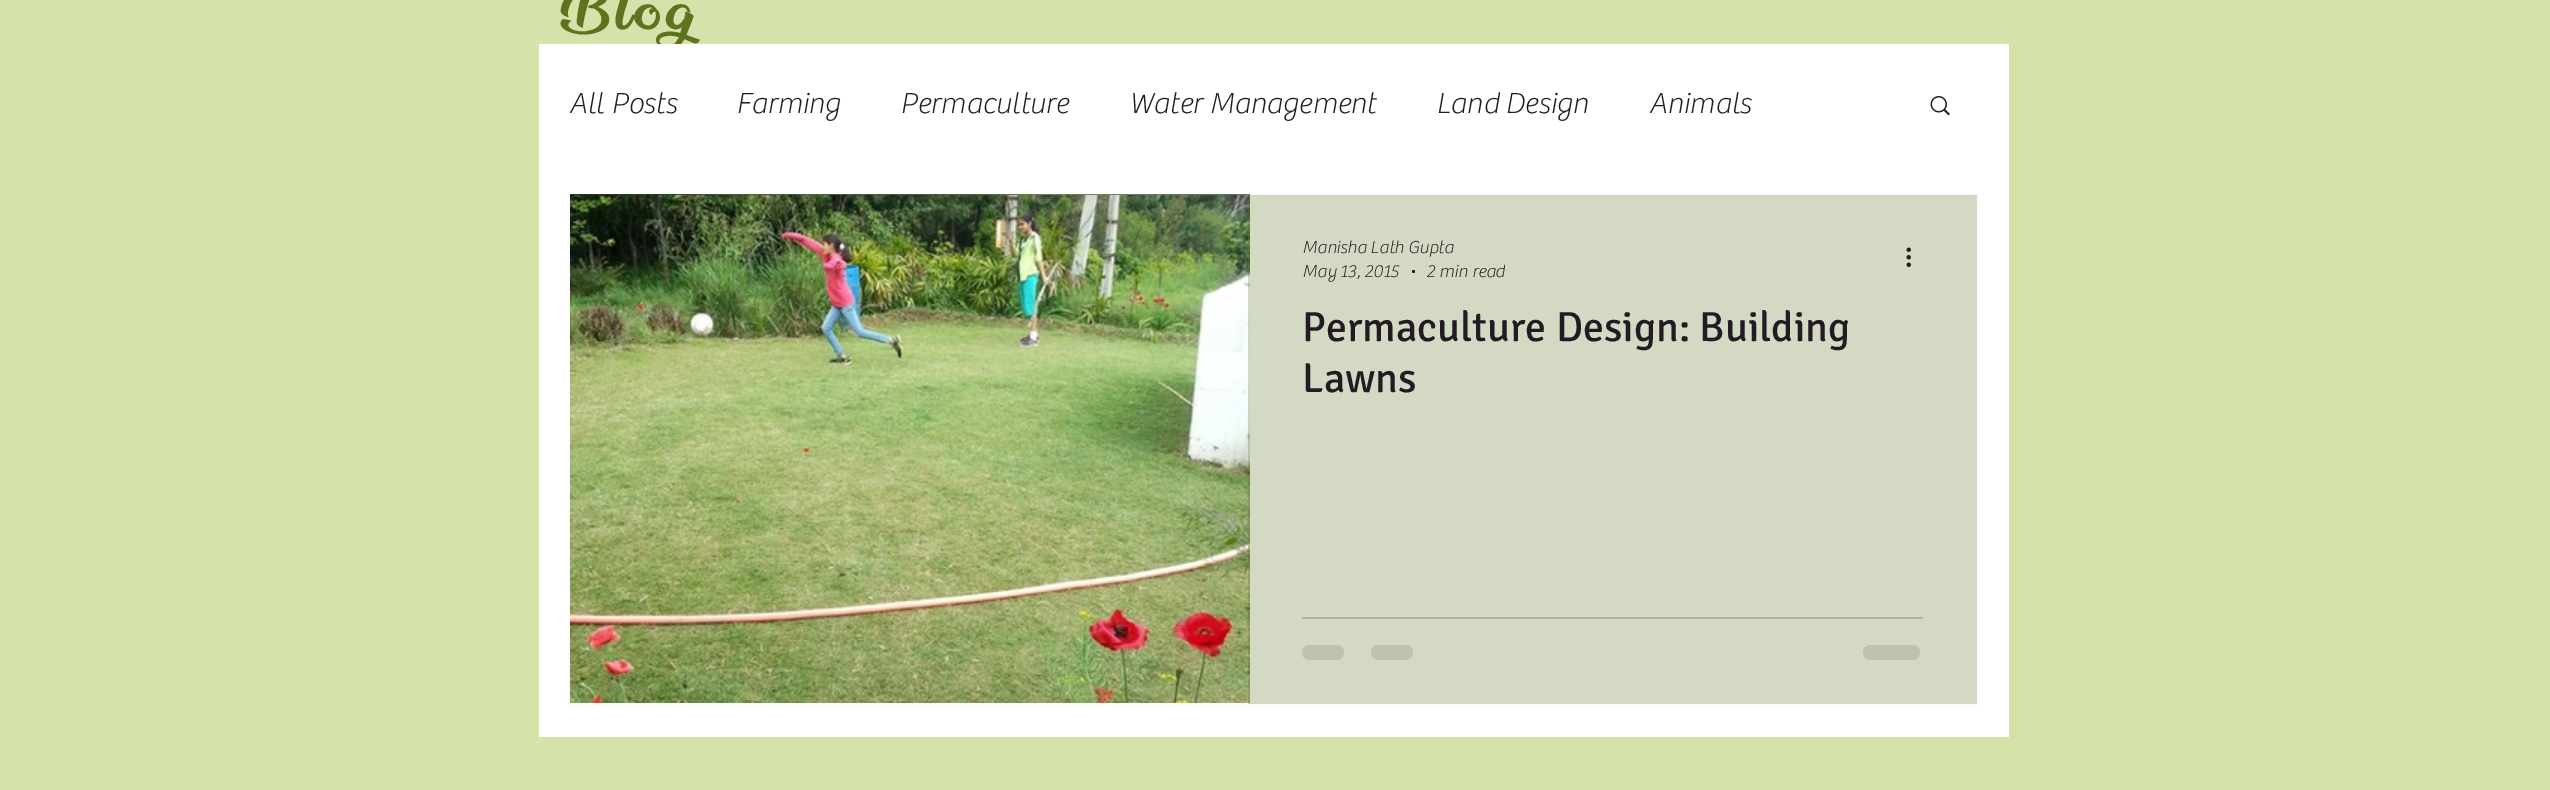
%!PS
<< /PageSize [2550 790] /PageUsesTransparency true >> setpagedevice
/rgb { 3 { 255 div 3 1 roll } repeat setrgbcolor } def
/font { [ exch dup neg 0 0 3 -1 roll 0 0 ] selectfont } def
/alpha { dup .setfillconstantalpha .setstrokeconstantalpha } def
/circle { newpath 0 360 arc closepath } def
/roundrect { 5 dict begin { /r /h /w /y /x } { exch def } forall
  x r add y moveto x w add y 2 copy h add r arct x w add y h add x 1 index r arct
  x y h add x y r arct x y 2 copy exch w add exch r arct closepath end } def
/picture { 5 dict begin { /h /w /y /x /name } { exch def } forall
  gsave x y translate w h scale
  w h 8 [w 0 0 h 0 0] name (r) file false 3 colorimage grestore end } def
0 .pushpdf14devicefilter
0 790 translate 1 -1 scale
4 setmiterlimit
213 227 171 rgb
0 0 2550 790 rectfill
/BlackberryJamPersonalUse-Black 60 font
94 115 30 rgb
567 29 moveto 3 0 (Blog) ashow
255 255 255 rgb
539 44 1470 693 rectfill
/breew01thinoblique-Thin 30 font
34 27 35 rgb
[
  [(All Posts) 569 113]
  [(Farming) 736 113]
  [(Permaculture) 900 113]
  [(Water Management) 1129 113]
  [(Land Design) 1436 113]
  [(Animals) 1649 113]
] { aload pop moveto show } forall
(img/1.rgb) 1930 96 20 20 picture
251 250 251 rgb
2 setlinewidth
570 195 1408 509 rectstroke
(img/2.rgb) 570 194 680 1 picture
(img/3.rgb) 570 195 680 508 picture
0.27 alpha
94 115 30 rgb
1248 195 729 509 rectfill
/breew01thinoblique-Thin 18 font
1 alpha
34 27 35 rgb
1302 253 moveto (Manisha Lath Gupta) show
1302 277 moveto (May 13, 2015) show
1413.5 271.5 1.5 circle fill
gsave
1427 261 78 21 rectclip
1426 277 moveto (2 min read) show
grestore
(img/4.rgb) 1906 247 5 20 picture
/Signika-Regular 42 font
1302 341 moveto (Permaculture Design: Building) show
1302 392 moveto (Lawns) show
176 179 162 rgb
1302 617 621 2 rectfill
190 194 175 rgb
1302 645 42 15 7.5 roundrect fill
1371 645 42 15 7.5 roundrect fill
1863 645 57 15 7.5 roundrect fill
.poppdf14devicefilter showpage
